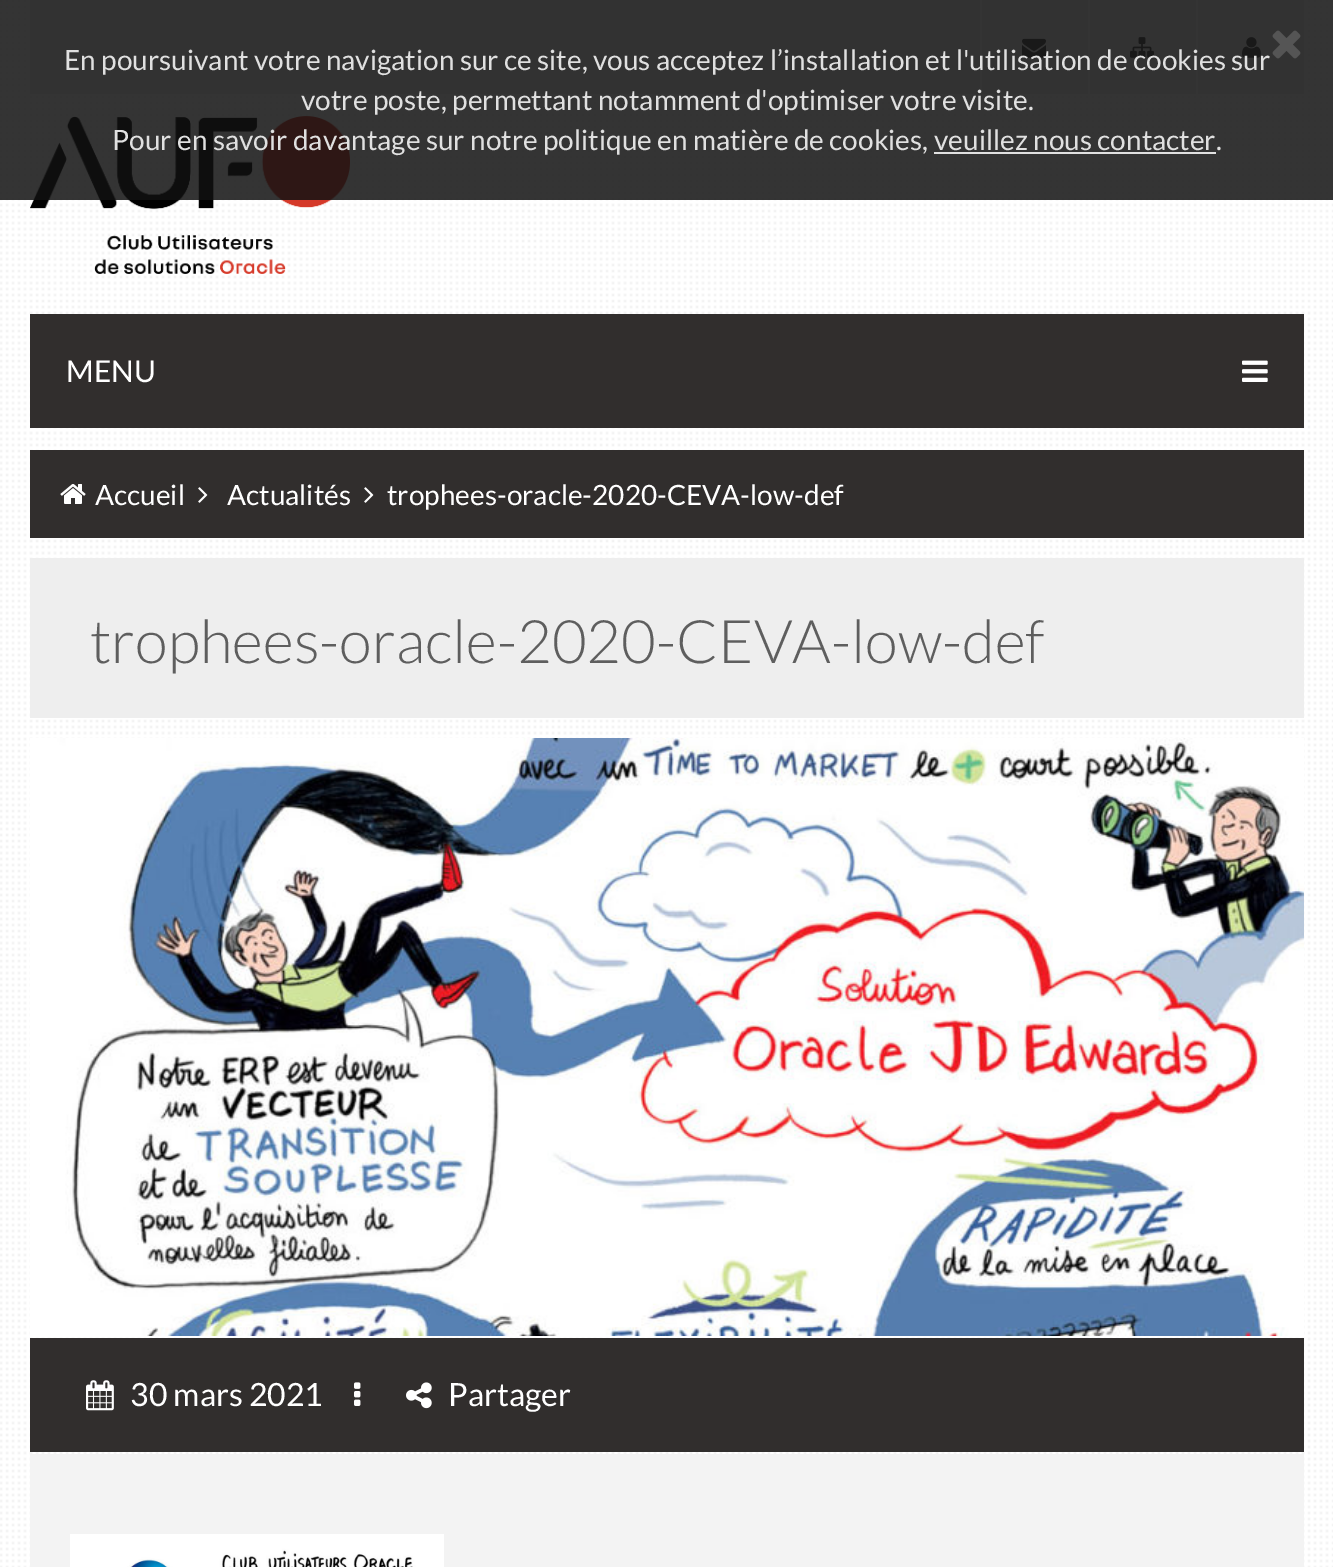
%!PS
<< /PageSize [1333 1567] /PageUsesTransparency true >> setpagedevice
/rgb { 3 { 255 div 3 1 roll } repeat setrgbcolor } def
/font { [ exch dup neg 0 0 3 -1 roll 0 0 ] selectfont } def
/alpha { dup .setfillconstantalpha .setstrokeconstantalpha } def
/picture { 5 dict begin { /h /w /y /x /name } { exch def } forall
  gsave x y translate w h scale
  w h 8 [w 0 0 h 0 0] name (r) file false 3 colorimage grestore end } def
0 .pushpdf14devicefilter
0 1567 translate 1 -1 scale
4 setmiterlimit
255 255 255 rgb
0 0 1333 1567 rectfill
(img/1.rgb) 0 0 1333 1567 picture
238 238 238 rgb
30 0 1274 94 rectfill
255 255 255 rgb
980 0 2 96 rectfill
(img/2.rgb) 1022 38 24 20 picture
1088 0 2 96 rectfill
(img/3.rgb) 1130 37 24 21 picture
1196 0 2 96 rectfill
(img/4.rgb) 1242 37 19 21 picture
(img/6.rgb) 30 116 320 158 picture
0.85 alpha
17 17 17 rgb
0 0 1333 200 rectfill
1 alpha
(img/5.rgb) 1272 30 29 29 picture
225 225 225 rgb
934 152 282 2 rectfill
49 46 45 rgb
30 314 1274 114 rectfill
(img/7.rgb) 1242 360 26 22 picture
30 450 1274 88 rectfill
(img/8.rgb) 60 484 26 20 picture
(img/9.rgb) 198 487 10 16 picture
(img/9.rgb) 364 487 10 16 picture
238 238 238 rgb
30 558 1274 160 rectfill
(img/10.rgb) 30 738 1274 598 picture
49 46 45 rgb
30 1338 1274 114 rectfill
(img/11.rgb) 86 1380 28 31 picture
(img/12.rgb) 354 1382 7 24 picture
(img/13.rgb) 406 1382 26 27 picture
243 243 243 rgb
30 1454 1274 113 rectfill
(img/14.rgb) 70 1534 374 33 picture
/Lato-Regular 28 font
224 224 224 rgb
[
  [(En poursuivant votre navigation sur ce site, vous acceptez l’installation et l'utilisation de cookies sur) 64 70]
  [(votre poste, permettant notamment d'optimiser votre visite.) 301 110]
  [(Pour en savoir davantage sur notre politique en matière de cookies,) 112 150]
  [(veuillez nous contacter.) 934 150]
] { aload pop moveto show } forall
/Lato-Regular 30 font
255 255 255 rgb
66 382 moveto (MENU) show
/Lato-Regular 28 font
[
  [(Accueil) 95 505]
  [(Actualités) 227 505]
  [(trophees-oracle-2020-CEVA-low-def) 387 505]
] { aload pop moveto show } forall
/Lato-Light 60 font
94 94 94 rgb
90 663 moveto (trophees-oracle-2020-CEVA-low-def) show
/Lato-Regular 32 font
255 255 255 rgb
130 1406 moveto (30 mars 2021) show
448 1406 moveto (Partager) show
.poppdf14devicefilter showpage
